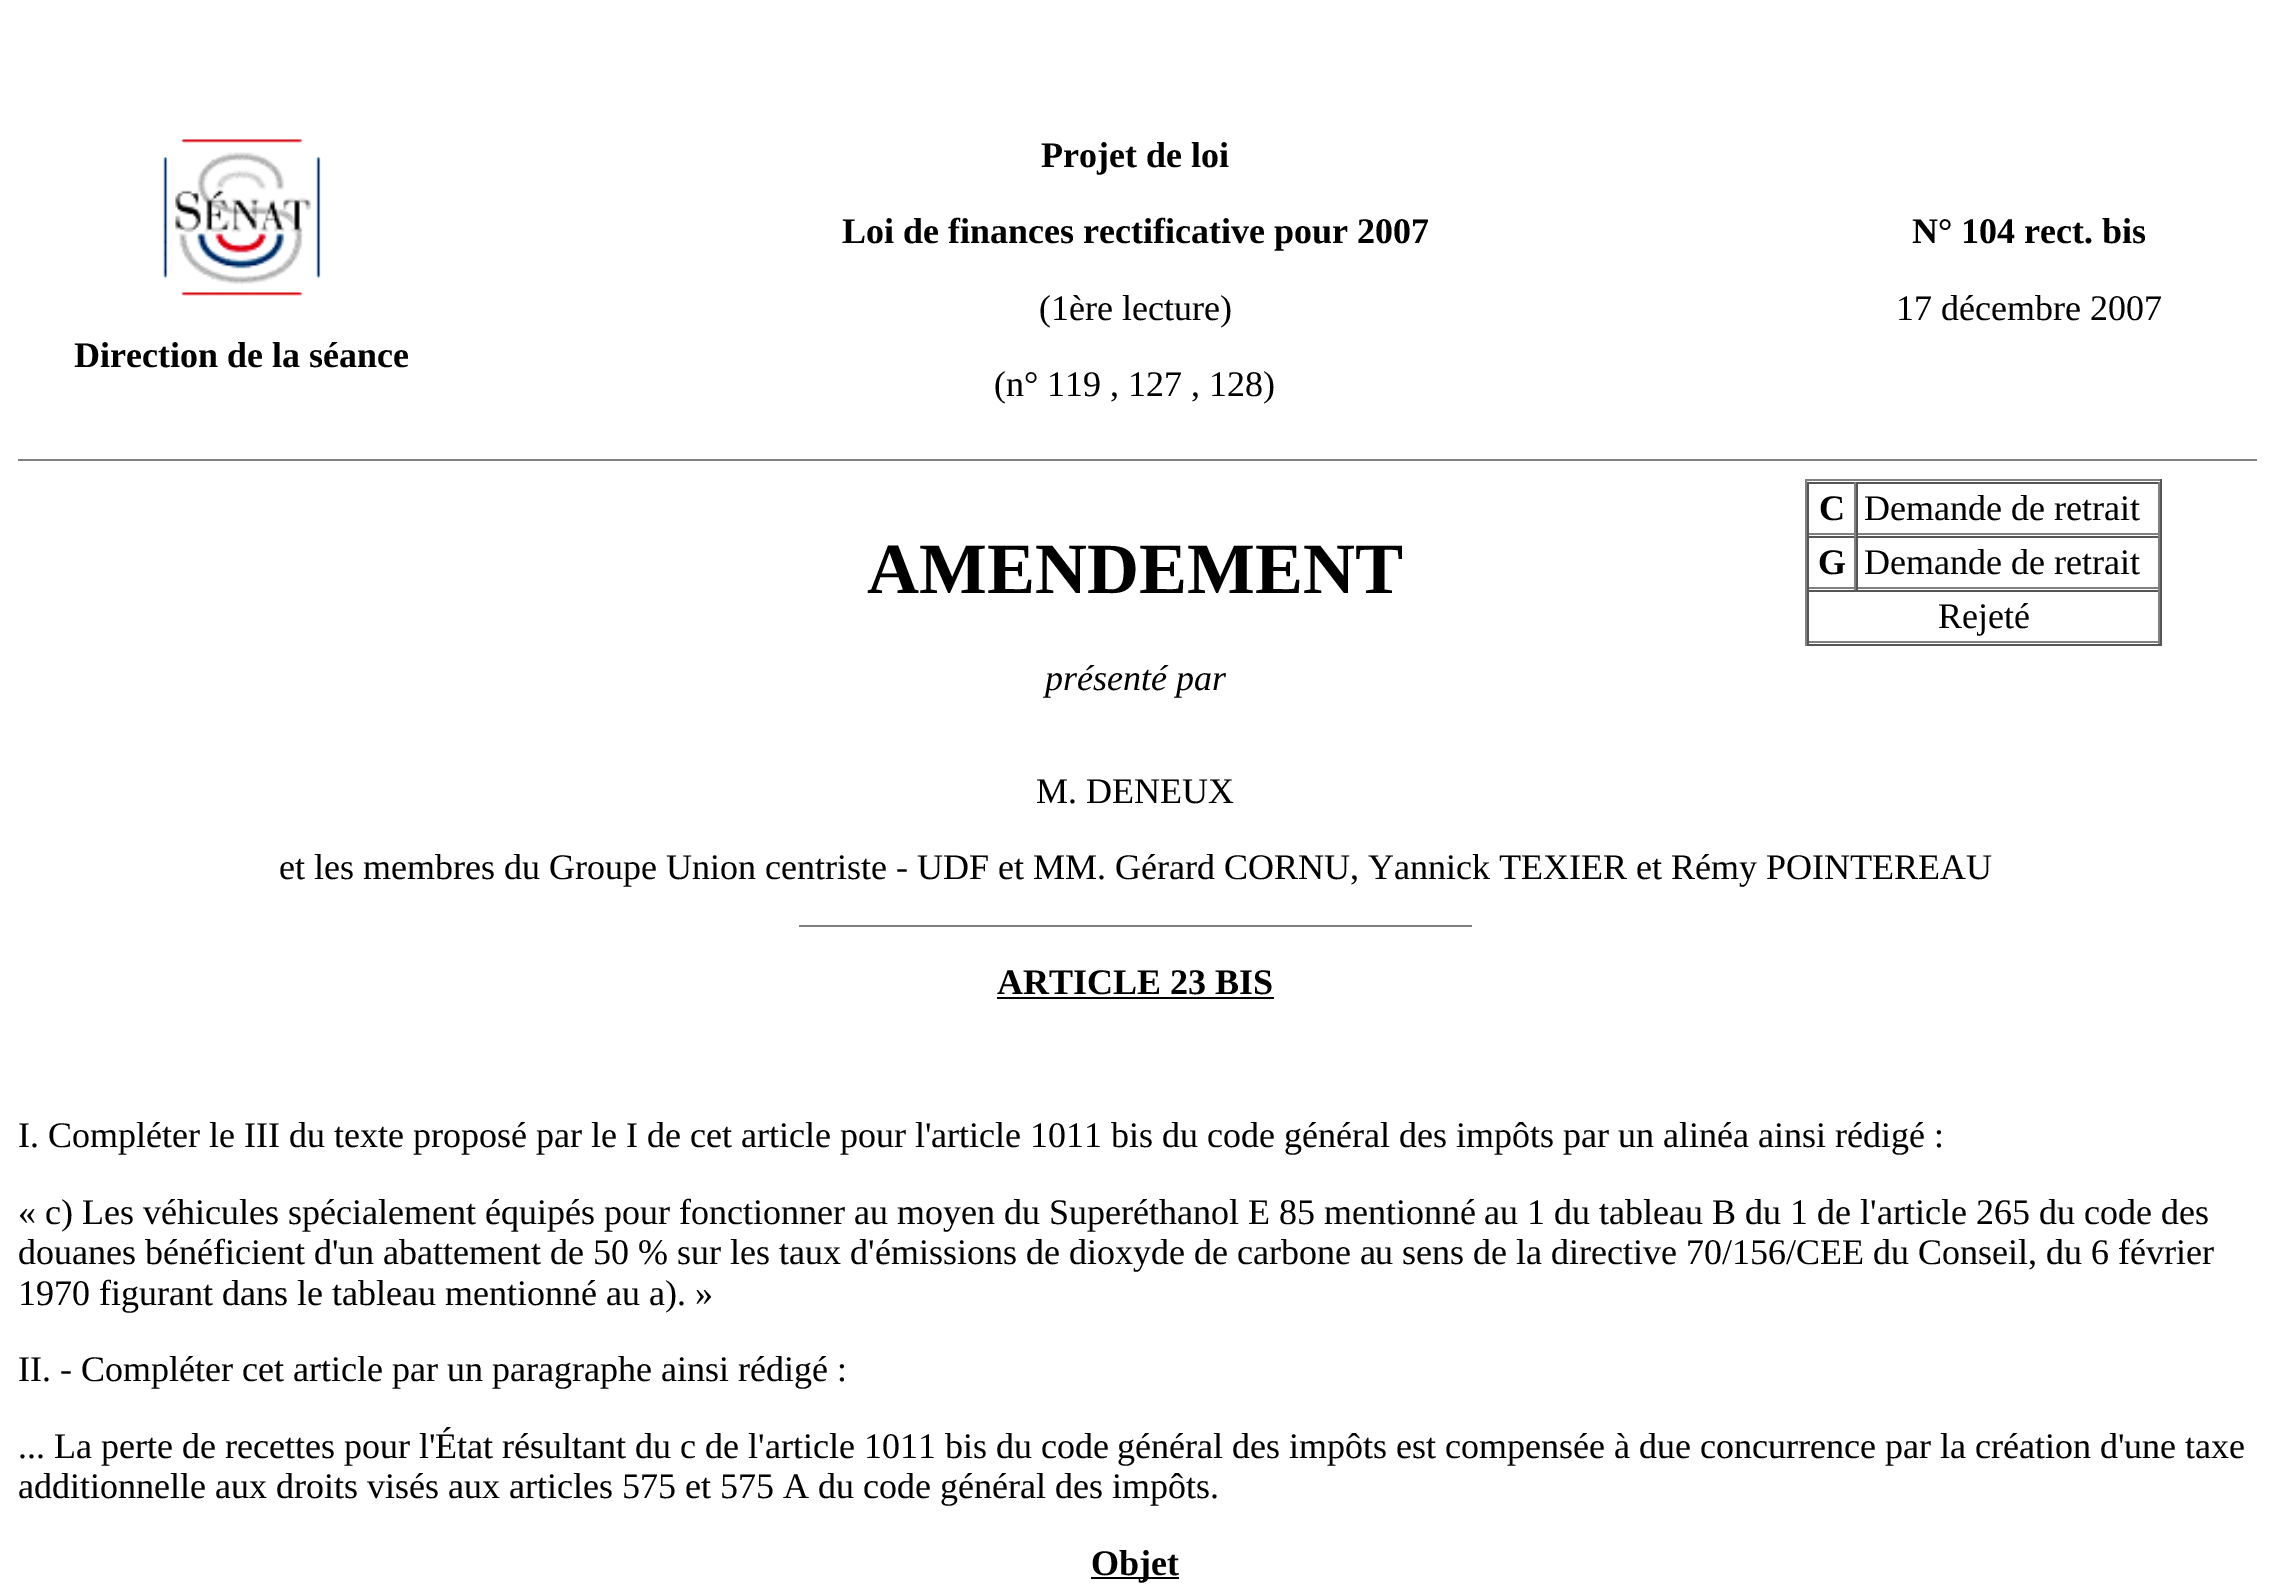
%!PS
<< /PageSize [2270 1595] >> setpagedevice
/rgb { 3 { 255 div 3 1 roll } repeat setrgbcolor } def
/font { [ exch dup neg 0 0 3 -1 roll 0 0 ] selectfont } def
/picture { 5 dict begin { /h /w /y /x /name } { exch def } forall
  gsave x y translate w h scale
  w h 8 [w 0 0 h 0 0] name (r) file false 3 colorimage grestore end } def
0 1595 translate 1 -1 scale
4 setmiterlimit
255 255 255 rgb
0 0 2270 1595 rectfill
(img/1.rgb) 163 139 158 157 picture
[
  [18 459 2239 2 128 128 128]
  [1805 479 357 2 128 128 128]
  [2160 479 2 167 85 85 85]
  [1805 644 357 2 85 85 85]
  [1805 479 2 167 128 128 128]
  [1807 482 353 2 85 85 85]
  [1854 482 2 54 128 128 128]
  [1807 533 49 2 128 128 128]
  [1807 482 2 54 85 85 85]
  [2158 482 2 54 128 128 128]
  [1856 533 304 2 128 128 128]
  [1856 482 2 54 85 85 85]
  [1807 536 353 2 85 85 85]
  [1854 536 2 54 128 128 128]
  [1807 587 49 2 128 128 128]
  [1807 536 2 54 85 85 85]
  [2158 536 2 54 128 128 128]
  [1856 587 304 2 128 128 128]
  [1856 536 2 54 85 85 85]
  [1807 590 353 2 85 85 85]
  [2158 590 2 54 128 128 128]
  [1807 641 353 2 128 128 128]
  [1807 590 2 54 85 85 85]
  [799 925 673 2 128 128 128]
  [997 997 277 2 0 0 0]
  [1091 1577 88 2 0 0 0]
] { aload pop rgb rectfill } forall
/LiberationSerif-Bold 36 font
1041 167 moveto (Projet de loi) show
842 243 moveto (Loi de finances rectificative pour 2007) show
/LiberationSerif-Regular 36 font
1039 320 moveto (\(1ère lecture\)) show
994 396 moveto (\(n° 119 , 127 , 128\)) show
/LiberationSerif-Bold 36 font
1912 243 moveto (N° 104 rect. bis) show
/LiberationSerif-Regular 36 font
1896 320 moveto (17 décembre 2007) show
/LiberationSerif-Bold 36 font
74 367 moveto (Direction de la séance) show
/LiberationSerif-Bold 72 font
867 593 moveto (AMENDEMENT) show
/LiberationSerif-Italic 36 font
1045 690 moveto (présenté par) show
/LiberationSerif-Bold 36 font
1819 520 moveto (C) show
/LiberationSerif-Regular 36 font
1864 520 moveto (Demande de retrait) show
/LiberationSerif-Bold 36 font
1818 574 moveto (G) show
/LiberationSerif-Regular 36 font
[
  [(Demande de retrait) 1864 574]
  [(Rejeté) 1938 628]
  [(M. DENEUX) 1036 803]
  [(et les membres du Groupe Union centriste - UDF et MM. Gérard CORNU, Yannick TEXIER et Rémy POINTEREAU) 279 879]
] { aload pop moveto show } forall
/LiberationSerif-Bold 36 font
997 994 moveto (ARTICLE 23 BIS) show
/LiberationSerif-Regular 36 font
[
  [(I. Compléter le III du texte proposé par le I de cet article pour l'article 1011 bis du code général des impôts par un alinéa ainsi rédigé :) 18 1147]
  [(« c\) Les véhicules spécialement équipés pour fonctionner au moyen du Superéthanol E 85 mentionné au 1 du tableau B du 1 de l'article 265 du code des) 18 1224]
  [(douanes bénéficient d'un abattement de 50 % sur les taux d'émissions de dioxyde de carbone au sens de la directive 70/156/CEE du Conseil, du 6 février) 18 1264]
  [(1970 figurant dans le tableau mentionné au a\). ») 18 1305]
  [(II. - Compléter cet article par un paragraphe ainsi rédigé :) 18 1381]
  [(... La perte de recettes pour l'État résultant du c de l'article 1011 bis du code général des impôts est compensée à due concurrence par la création d'une taxe) 18 1458]
  [(additionnelle aux droits visés aux articles 575 et 575 A du code général des impôts.) 18 1498]
] { aload pop moveto show } forall
/LiberationSerif-Bold 36 font
1091 1575 moveto (Objet) show
showpage
